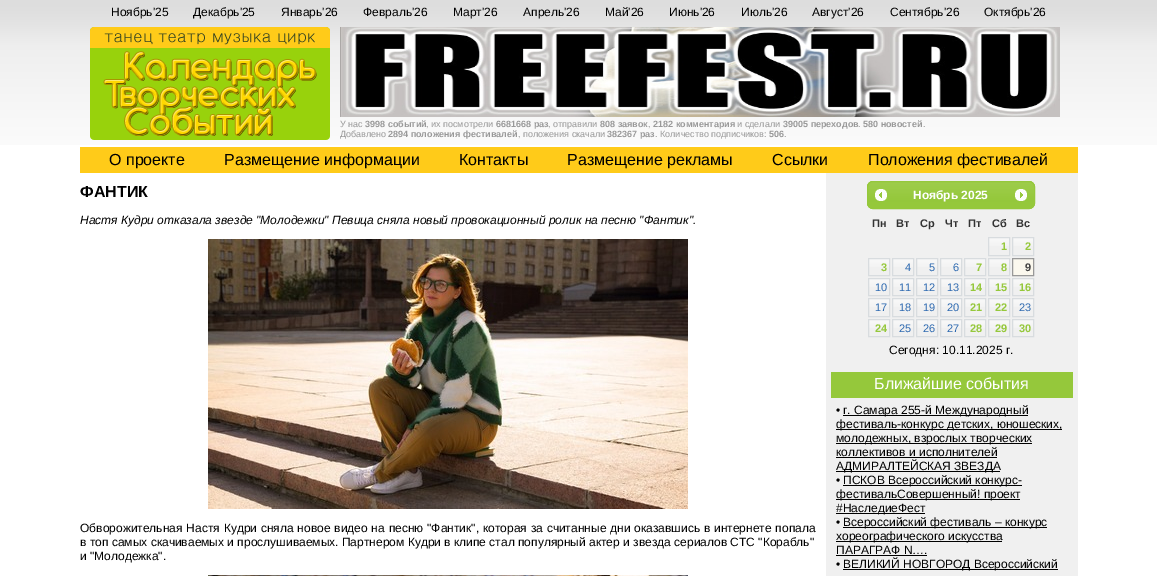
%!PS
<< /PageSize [1157 576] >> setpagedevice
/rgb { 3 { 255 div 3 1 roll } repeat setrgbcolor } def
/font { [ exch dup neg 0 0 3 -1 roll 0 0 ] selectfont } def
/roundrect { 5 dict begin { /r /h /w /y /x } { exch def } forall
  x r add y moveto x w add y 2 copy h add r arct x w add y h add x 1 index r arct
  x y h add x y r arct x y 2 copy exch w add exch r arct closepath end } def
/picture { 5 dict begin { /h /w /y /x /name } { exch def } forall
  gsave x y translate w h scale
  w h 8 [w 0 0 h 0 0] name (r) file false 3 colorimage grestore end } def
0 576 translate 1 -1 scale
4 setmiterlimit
255 255 255 rgb
0 0 1157 576 rectfill
(img/1.rgb) 0 0 1157 145 picture
(img/2.rgb) 90 27 240 113 picture
(img/3.rgb) 340 27 720 90 picture
255 203 25 rgb
80 147 998 26 rectfill
(img/4.rgb) 208 239 480 270 picture
(img/5.rgb) 208 575 480 1 picture
240 240 240 rgb
826 173 252 403 rectfill
(img/6.rgb) 867 181 168 28 picture
149 200 59 rgb
867.5 181.5 167 27 5.5 roundrect stroke
(img/7.rgb) 875 189 12 12 picture
(img/8.rgb) 1015 189 12 12 picture
(img/9.rgb) 989 238 20 8 picture
216 220 223 rgb
988.5 237.5 21 18 rectstroke
(img/9.rgb) 1013 238 20 8 picture
1012.5 237.5 21 18 rectstroke
(img/9.rgb) 869 259 20 8 picture
868.5 258.5 21 17 rectstroke
(img/9.rgb) 893 259 20 8 picture
892.5 258.5 21 17 rectstroke
(img/9.rgb) 917 259 20 8 picture
916.5 258.5 21 17 rectstroke
(img/9.rgb) 941 259 20 8 picture
940.5 258.5 21 17 rectstroke
(img/9.rgb) 965 259 20 8 picture
964.5 258.5 21 17 rectstroke
(img/9.rgb) 989 259 20 8 picture
988.5 258.5 21 17 rectstroke
251 248 238 rgb
1012.5 258.5 moveto 1033.5 258.5 lineto 1033.5 275.5 lineto 1012.5 275.5 lineto closepath gsave fill grestore
153 153 153 rgb
stroke
(img/9.rgb) 869 279 20 8 picture
216 220 223 rgb
868.5 278.5 21 17 rectstroke
(img/9.rgb) 893 279 20 8 picture
892.5 278.5 21 17 rectstroke
(img/9.rgb) 917 279 20 8 picture
916.5 278.5 21 17 rectstroke
(img/9.rgb) 941 279 20 8 picture
940.5 278.5 21 17 rectstroke
(img/9.rgb) 965 279 20 8 picture
964.5 278.5 21 17 rectstroke
(img/9.rgb) 989 279 20 8 picture
988.5 278.5 21 17 rectstroke
(img/9.rgb) 1013 279 20 8 picture
1012.5 278.5 21 17 rectstroke
(img/9.rgb) 869 299 20 8 picture
868.5 298.5 21 18 rectstroke
(img/9.rgb) 893 299 20 8 picture
892.5 298.5 21 18 rectstroke
(img/9.rgb) 917 299 20 8 picture
916.5 298.5 21 18 rectstroke
(img/9.rgb) 941 299 20 8 picture
940.5 298.5 21 18 rectstroke
(img/9.rgb) 965 299 20 8 picture
964.5 298.5 21 18 rectstroke
(img/9.rgb) 989 299 20 8 picture
988.5 298.5 21 18 rectstroke
(img/9.rgb) 1013 299 20 8 picture
1012.5 298.5 21 18 rectstroke
(img/9.rgb) 869 320 20 8 picture
868.5 319.5 21 17 rectstroke
(img/9.rgb) 893 320 20 8 picture
892.5 319.5 21 17 rectstroke
(img/9.rgb) 917 320 20 8 picture
916.5 319.5 21 17 rectstroke
(img/9.rgb) 941 320 20 8 picture
940.5 319.5 21 17 rectstroke
(img/9.rgb) 965 320 20 8 picture
964.5 319.5 21 17 rectstroke
(img/9.rgb) 989 320 20 8 picture
988.5 319.5 21 17 rectstroke
(img/9.rgb) 1013 320 20 8 picture
1012.5 319.5 21 17 rectstroke
[
  [831 372 242 26 149 200 59]
  [843 415 185 1 0 0 0]
  [836 429 226 1 0 0 0]
  [836 443 196 1 0 0 0]
  [836 457 161 1 0 0 0]
  [836 471 164 1 0 0 0]
  [843 485 179 1 0 0 0]
  [836 499 184 1 0 0 0]
  [836 513 89 1 0 0 0]
  [843 527 204 1 0 0 0]
  [836 541 166 1 0 0 0]
  [836 555 91 1 0 0 0]
  [843 569 215 1 0 0 0]
] { aload pop rgb rectfill } forall
/LiberationSans-Regular 12 font
[
  [(Ноябрь'25) 111 16]
  [(Декабрь'25) 193 16]
  [(Январь'26) 281 16]
  [(Февраль'26) 363 16]
  [(Март'26) 453 16]
  [(Апрель'26) 523 16]
  [(Май'26) 605 16]
  [(Июнь'26) 669 16]
  [(Июль'26) 741 16]
  [(Август'26) 812 16]
  [(Сентябрь'26) 890 16]
  [(Октябрь'26) 984 16]
] { aload pop moveto show } forall
/LiberationSans-Regular 9 font
153 153 153 rgb
340 127 moveto (У нас) show
/LiberationSans-Bold 9 font
365 127 moveto (3998 событий) show
/LiberationSans-Regular 9 font
426 127 moveto (, их посмотрели) show
/LiberationSans-Bold 9 font
496 127 moveto (6681668 раз) show
/LiberationSans-Regular 9 font
548 127 moveto (, отправили) show
/LiberationSans-Bold 9 font
600 127 moveto (808 заявок) show
/LiberationSans-Regular 9 font
648 127 moveto (,) show
/LiberationSans-Bold 9 font
653 127 moveto (2182 комментария) show
/LiberationSans-Regular 9 font
737 127 moveto (и сделали) show
/LiberationSans-Bold 9 font
783 127 moveto (39005 переходов) show
/LiberationSans-Regular 9 font
858 127 moveto (.) show
/LiberationSans-Bold 9 font
863 127 moveto (580 новостей) show
/LiberationSans-Regular 9 font
923 127 moveto (.) show
gsave
340 27 738 120 rectclip
340 137 moveto (Добавлено) show
grestore
/LiberationSans-Bold 9 font
388 137 moveto (2894 положения фестивалей) show
/LiberationSans-Regular 9 font
518 137 moveto (, положения скачали) show
/LiberationSans-Bold 9 font
607 137 moveto (382367 раз) show
/LiberationSans-Regular 9 font
655 137 moveto (. Количество подписчиков:) show
/LiberationSans-Bold 9 font
769 137 moveto (506) show
/LiberationSans-Regular 9 font
784 137 moveto (.) show
/LiberationSans-Regular 16 font
0 0 0 rgb
[
  [(О проекте) 109 165]
  [(Размещение информации) 224 165]
  [(Контакты) 459 165]
  [(Размещение рекламы) 567 165]
  [(Cсылки) 772 165]
  [(Положения фестивалей) 868 165]
] { aload pop moveto show } forall
/LiberationSans-Bold 16 font
80 197 moveto (ФАНТИК) show
/LiberationSans-Italic 12 font
80 224 moveto (Настя Кудри отказала звезде "Молодежки" Певица сняла новый провокационный ролик на песню "Фантик".) show
/LiberationSans-Regular 12 font
80 532 moveto 0.5 0 32 (Обворожительная Настя Кудри сняла новое видео на песню "Фантик", которая за считанные дни оказавшись в интернете попала) widthshow
80 546 moveto (в топ самых скачиваемых и прослушиваемых. Партнером Кудри в клипе стал популярный актер и звезда сериалов СТС "Корабль") show
80 560 moveto (и "Молодежка".) show
/LiberationSans-Bold 12 font
255 255 255 rgb
913 199 moveto (Ноябрь 2025) show
/LiberationSans-Bold 11 font
51 51 51 rgb
[
  [(Пн) 872 227]
  [(Вт) 896 227]
  [(Ср) 920 227]
  [(Чт) 945 227]
  [(Пт) 968 227]
  [(Сб) 992 227]
  [(Вс) 1016 227]
] { aload pop moveto show } forall
149 200 59 rgb
[
  [(1) 1001 250]
  [(2) 1025 250]
  [(3) 881 271]
] { aload pop moveto show } forall
/LiberationSans-Regular 11 font
46 106 177 rgb
[
  [(4) 905 271]
  [(5) 929 271]
  [(6) 953 271]
] { aload pop moveto show } forall
/LiberationSans-Bold 11 font
149 200 59 rgb
976 271 moveto (7) show
1001 271 moveto (8) show
68 68 68 rgb
1025 271 moveto (9) show
/LiberationSans-Regular 11 font
46 106 177 rgb
[
  [(10) 875 291]
  [(11) 899 291]
  [(12) 923 291]
  [(13) 947 291]
] { aload pop moveto show } forall
/LiberationSans-Bold 11 font
149 200 59 rgb
[
  [(14) 970 291]
  [(15) 995 291]
  [(16) 1019 291]
] { aload pop moveto show } forall
/LiberationSans-Regular 11 font
46 106 177 rgb
[
  [(17) 875 311]
  [(18) 899 311]
  [(19) 923 311]
  [(20) 947 311]
] { aload pop moveto show } forall
/LiberationSans-Bold 11 font
149 200 59 rgb
970 311 moveto (21) show
995 311 moveto (22) show
/LiberationSans-Regular 11 font
46 106 177 rgb
1019 311 moveto (23) show
/LiberationSans-Bold 11 font
149 200 59 rgb
875 332 moveto (24) show
/LiberationSans-Regular 11 font
46 106 177 rgb
[
  [(25) 899 332]
  [(26) 923 332]
  [(27) 947 332]
] { aload pop moveto show } forall
/LiberationSans-Bold 11 font
149 200 59 rgb
[
  [(28) 970 332]
  [(29) 995 332]
  [(30) 1019 332]
] { aload pop moveto show } forall
/LiberationSans-Regular 12 font
0 0 0 rgb
889 354 moveto (Сегодня: 10.11.2025 г.) show
/LiberationSans-Regular 16 font
255 255 255 rgb
874 389 moveto (Ближайшие события) show
/LiberationSans-Regular 12 font
0 0 0 rgb
[
  [(•) 836 414]
  [(г. Самара 255-й Международный) 843 414]
  [(фестиваль-конкурс детских, юношеских,) 836 428]
  [(молодежных, взрослых творческих) 836 442]
  [(коллективов и исполнителей) 836 456]
  [(АДМИРАЛТЕЙСКАЯ ЗВЕЗДА) 836 470]
  [(•) 836 484]
  [(ПСКОВ Всероссийский конкурс-) 843 484]
  [(фестивальСовершенный! проект) 836 498]
  [(#НаследиеФест) 836 512]
  [(•) 836 526]
  [(Всероссийский фестиваль – конкурс) 843 526]
  [(хореографического искусства) 836 540]
  [(ПАРАГРАФ N….) 836 554]
  [(•) 836 568]
  [(ВЕЛИКИЙ НОВГОРОД Всероссийский) 843 568]
] { aload pop moveto show } forall
showpage
